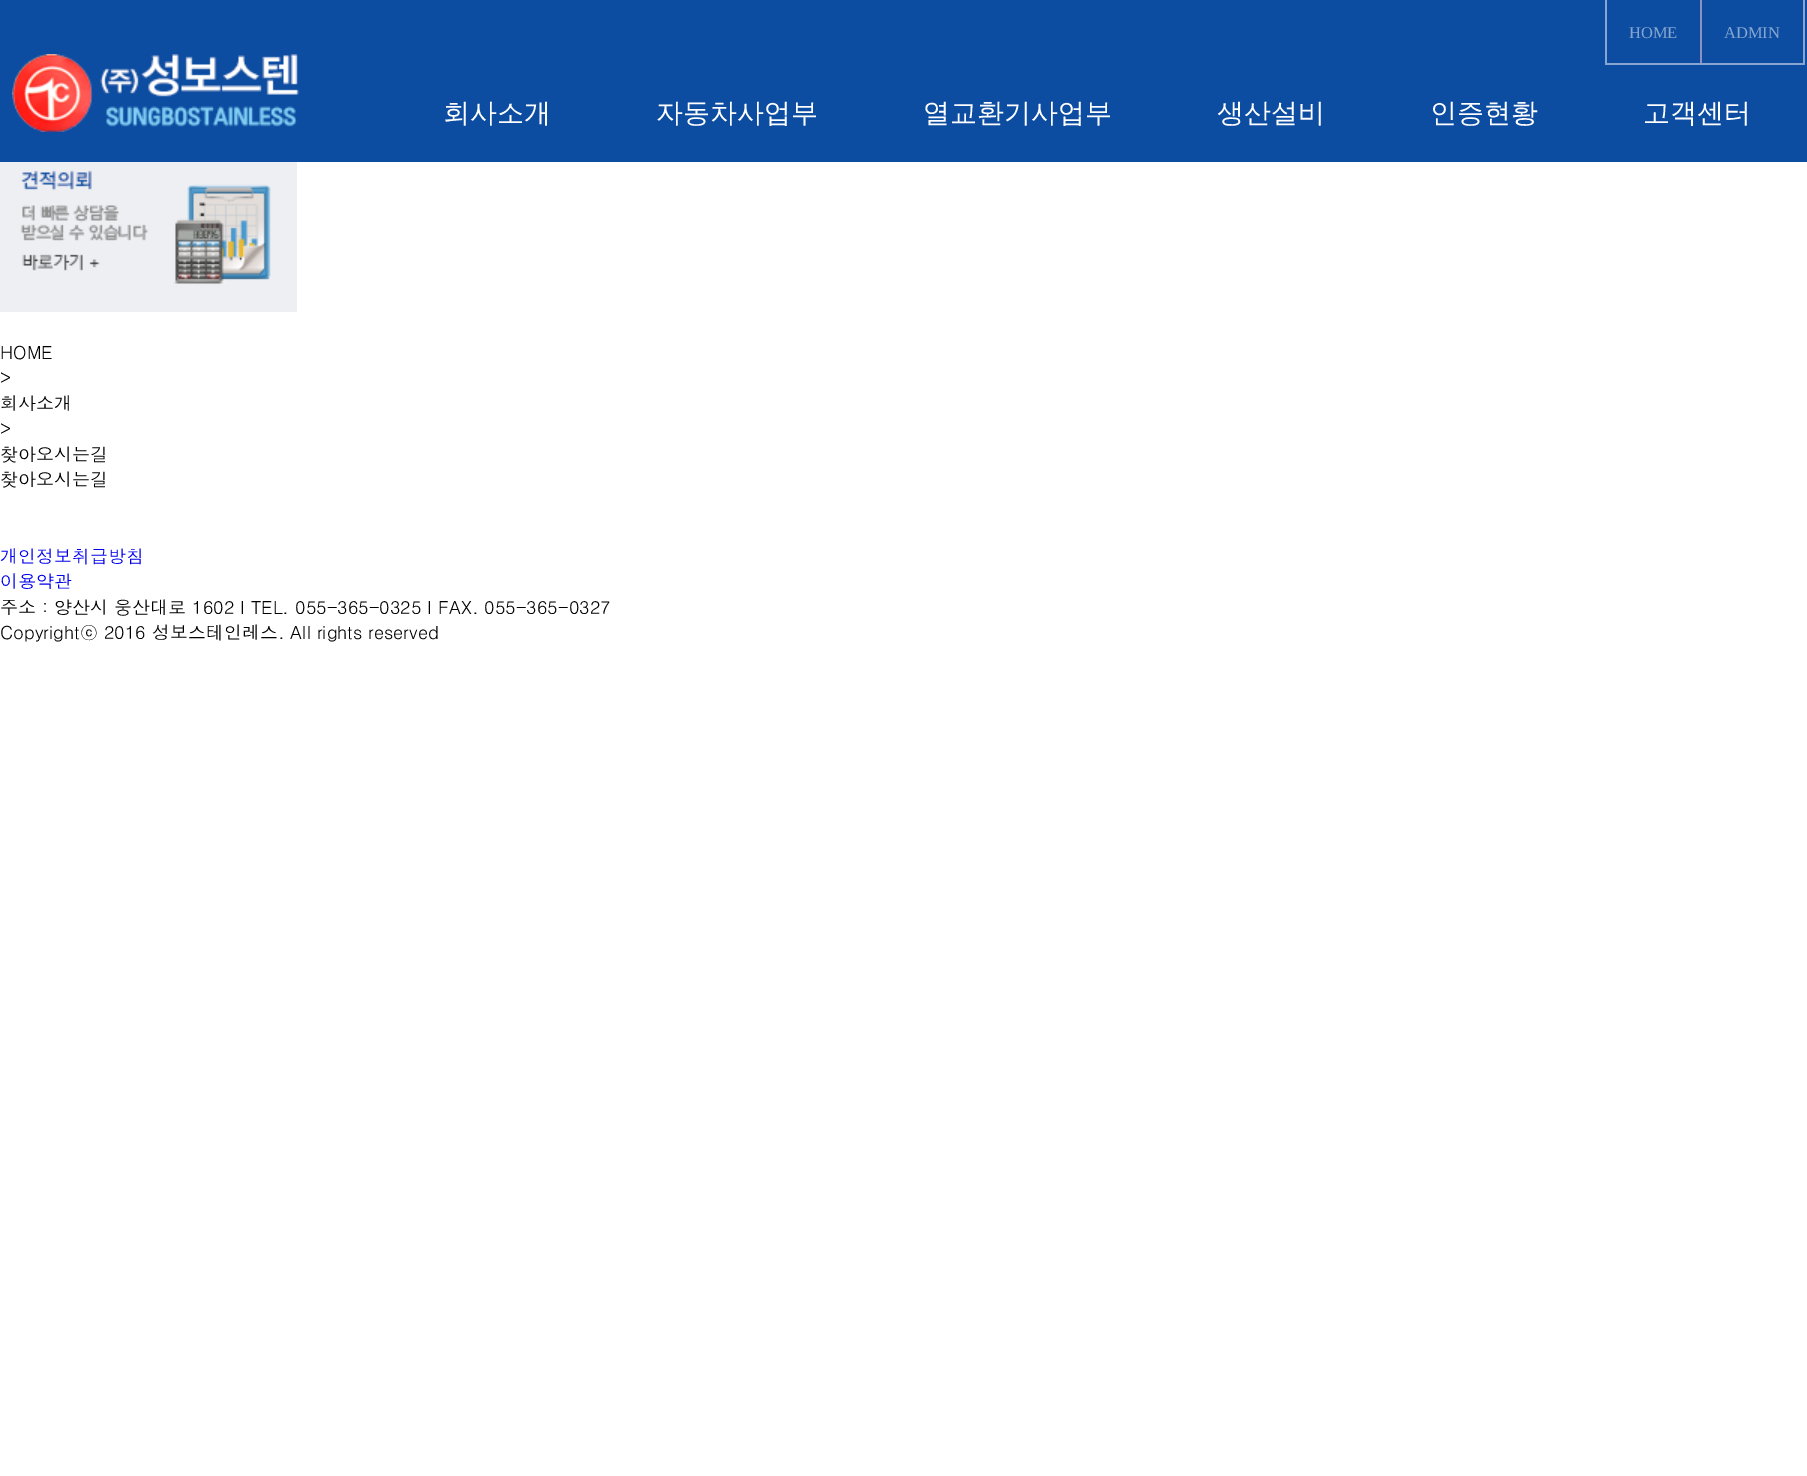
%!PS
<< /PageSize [1807 1476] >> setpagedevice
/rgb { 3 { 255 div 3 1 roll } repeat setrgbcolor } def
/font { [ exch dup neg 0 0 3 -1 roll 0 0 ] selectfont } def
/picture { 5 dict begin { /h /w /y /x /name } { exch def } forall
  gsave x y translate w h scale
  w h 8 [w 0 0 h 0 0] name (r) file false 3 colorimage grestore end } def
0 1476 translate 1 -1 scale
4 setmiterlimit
255 255 255 rgb
0 0 1807 1476 rectfill
[
  [0 0 1807 162 12 77 162]
  [1803 0 2 65 134 166 209]
  [1605 63 200 2 134 166 209]
  [1605 0 2 65 134 166 209]
  [1700 0 2 63 142 144 196]
] { aload pop rgb rectfill } forall
(img/1.rgb) 12 54 287 78 picture
(img/2.rgb) 0 162 297 150 picture
/LiberationSerif-Regular 16.5 font
134 166 209 rgb
1629 38 moveto (HOME) show
1724 38 moveto (ADMIN) show
/WenQuanYiZenHei-Medium 27 font
255 255 255 rgb
[
  [(회사소개) 443 122]
  [(자동차사업부) 656 122]
  [(열교환기사업부) 923 122]
  [(생산설비) 1217 122]
  [(인증현황) 1430 122]
  [(고객센터) 1643 122]
] { aload pop moveto show } forall
/Dotum-Regular 18 font
0 0 0 rgb
[
  [(HOME) 0 359]
  [(>) 0 384]
  [(회사소개) 0 410]
  [(>) 0 435]
  [(찾아오시는길) 0 461]
  [(찾아오시는길) 0 486]
] { aload pop moveto show } forall
0 0 238 rgb
0 563 moveto (개인정보취급방침) show
0 588 moveto (이용약관) show
0 0 0 rgb
0 614 moveto (주소 : 양산시 웅산대로 1602 I TEL. 055-365-0325 I FAX. 055-365-0327) show
0 639 moveto (Copyrightⓒ 2016 성보스테인레스. All rights reserved) show
showpage
